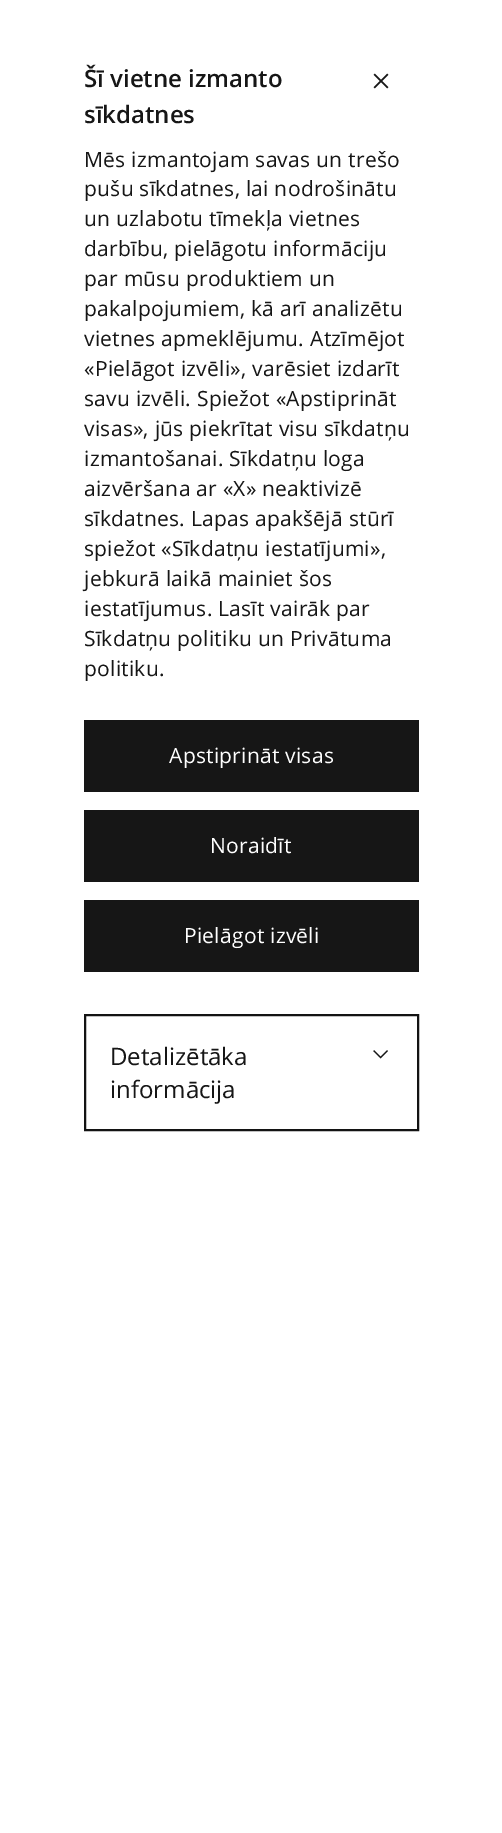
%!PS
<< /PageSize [502 1833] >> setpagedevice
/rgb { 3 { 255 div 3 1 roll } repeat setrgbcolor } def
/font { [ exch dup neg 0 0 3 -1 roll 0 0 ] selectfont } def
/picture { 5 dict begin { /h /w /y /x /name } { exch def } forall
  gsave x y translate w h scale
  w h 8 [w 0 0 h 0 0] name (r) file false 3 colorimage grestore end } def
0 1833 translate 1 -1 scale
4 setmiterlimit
255 255 255 rgb
0 0 502 1833 rectfill
(img/1.rgb) 373 73 16 16 picture
[
  [84 720 335 72 22 22 22]
  [84 810 335 72 22 22 22]
  [84 900 335 72 22 22 22]
] { aload pop rgb rectfill } forall
19 19 19 rgb
2 setlinewidth
85 1015 333 115 rectstroke
(img/2.rgb) 373 1050 15 9 picture
/OpenSans-SemiBold 24 font
22 22 22 rgb
84 87 moveto (Šī vietne izmanto) show
84 123 moveto (sīkdatnes) show
/OpenSans-Regular 21 font
84 167 moveto 0.25 0 (Mēs izmantojam savas un trešo) ashow
84 196 moveto 0.25 0 (pušu sīkdatnes, lai nodrošinātu) ashow
84 226 moveto 0.25 0 (un uzlabotu tīmekļa vietnes) ashow
84 256 moveto 0.25 0 (darbību, pielāgotu informāciju) ashow
84 286 moveto 0.25 0 (par mūsu produktiem un) ashow
84 316 moveto 0.25 0 (pakalpojumiem, kā arī analizētu) ashow
84 346 moveto 0.25 0 (vietnes apmeklējumu. Atzīmējot) ashow
84 376 moveto 0.25 0 («Pielāgot izvēli», varēsiet izdarīt) ashow
84 406 moveto 0.25 0 (savu izvēli. Spiežot «Apstiprināt) ashow
84 436 moveto 0.25 0 (visas», jūs piekrītat visu sīkdatņu) ashow
84 466 moveto 0.25 0 (izmantošanai. Sīkdatņu loga) ashow
84 496 moveto 0.25 0 (aizvēršana ar «X» neaktivizē) ashow
84 526 moveto 0.25 0 (sīkdatnes. Lapas apakšējā stūrī) ashow
84 556 moveto 0.25 0 (spiežot «Sīkdatņu iestatījumi»,) ashow
84 586 moveto 0.25 0 (jebkurā laikā mainiet šos) ashow
84 616 moveto 0.25 0 (iestatījumus. Lasīt vairāk par) ashow
84 646 moveto 0.25 0 (Sīkdatņu politiku un Privātuma) ashow
84 676 moveto 0.25 0 (politiku.) ashow
255 255 255 rgb
169 763 moveto 0.25 0 (Apstiprināt visas) ashow
210 853 moveto 0.25 0 (Noraidīt) ashow
184 943 moveto 0.25 0 (Pielāgot izvēli) ashow
/OpenSans-Regular 24 font
22 22 22 rgb
110 1065 moveto (Detalizētāka) show
110 1098 moveto (informācija) show
showpage
